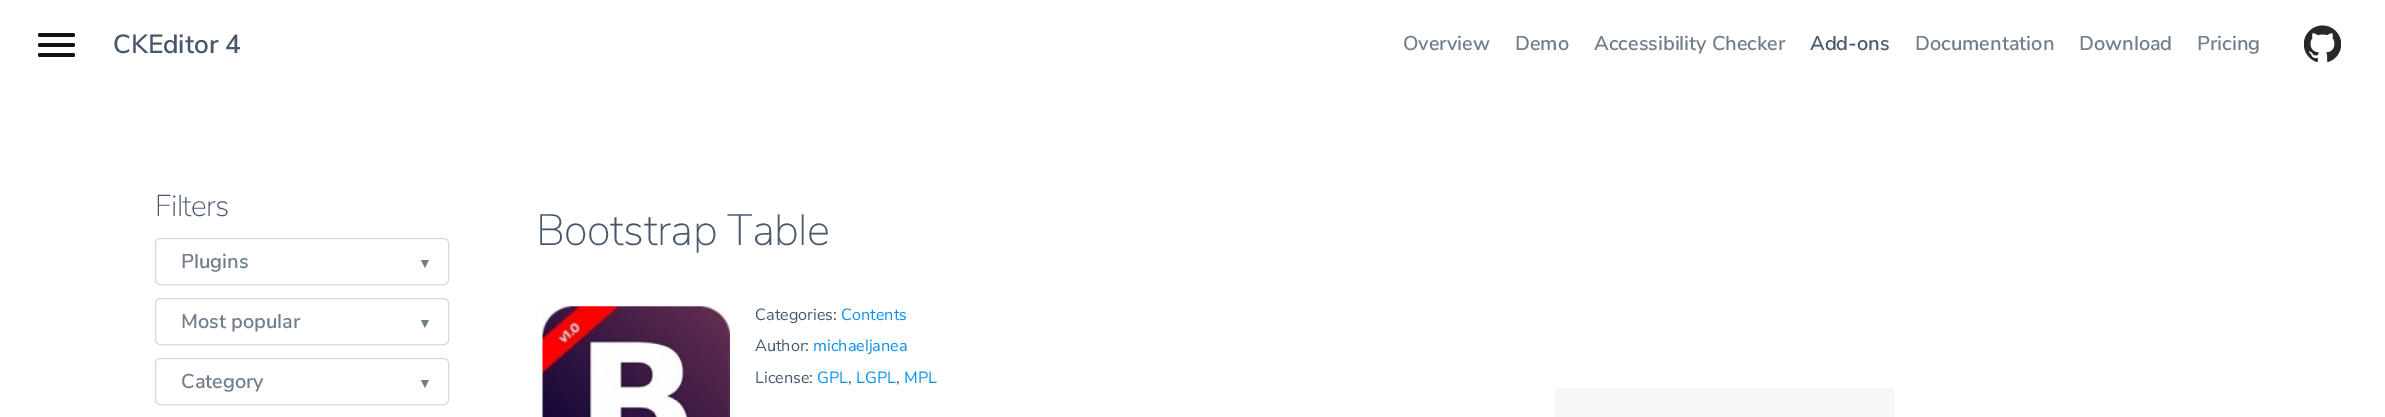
%!PS
<< /PageSize [2385 417] >> setpagedevice
/rgb { 3 { 255 div 3 1 roll } repeat setrgbcolor } def
/font { [ exch dup neg 0 0 3 -1 roll 0 0 ] selectfont } def
/roundrect { 5 dict begin { /r /h /w /y /x } { exch def } forall
  x r add y moveto x w add y 2 copy h add r arct x w add y h add x 1 index r arct
  x y h add x y r arct x y 2 copy exch w add exch r arct closepath end } def
/picture { 5 dict begin { /h /w /y /x /name } { exch def } forall
  gsave x y translate w h scale
  w h 8 [w 0 0 h 0 0] name (r) file false 3 colorimage grestore end } def
0 417 translate 1 -1 scale
4 setmiterlimit
255 255 255 rgb
0 0 2385 417 rectfill
17 17 17 rgb
38 33 37 4 2 roundrect fill
38 43 37 4 2 roundrect fill
38 53 37 4 2 roundrect fill
(img/1.rgb) 2304 25 37 37 picture
217 217 217 rgb
155.5 238.5 293 46 4.5 roundrect stroke
155.5 298.5 293 46 4.5 roundrect stroke
155.5 358.5 293 46 4.5 roundrect stroke
(img/2.rgb) 542 306 188 111 picture
247 247 247 rgb
1555 388 339 29 rectfill
/NunitoSans-SemiBold 26.25 font
72 88 108 rgb
113 53 moveto (CKEditor 4) show
/NunitoSans-SemiBold 20 font
112 125 140 rgb
[
  [(Overview) 1403 50]
  [(Demo) 1515 50]
  [(Accessibility Checker) 1594 50]
] { aload pop moveto show } forall
72 88 108 rgb
1810 50 moveto (Add-ons) show
112 125 140 rgb
[
  [(Documentation) 1915 50]
  [(Download) 2079 50]
  [(Pricing) 2197 50]
] { aload pop moveto show } forall
/NunitoSans-ExtraLight 30 font
72 88 108 rgb
155 216 moveto -0.6 0 (Filters) ashow
/NunitoSans-SemiBold 20 font
112 125 140 rgb
181 268 moveto (Plugins) show
/LiberationSans-Bold 14 font
418 268 moveto (▼) show
/NunitoSans-SemiBold 20 font
181 328 moveto (Most popular) show
/LiberationSans-Bold 14 font
418 328 moveto (▼) show
/NunitoSans-SemiBold 20 font
181 388 moveto (Category) show
/LiberationSans-Bold 14 font
418 388 moveto (▼) show
/NunitoSans-ExtraLight 43.75 font
72 88 108 rgb
536 245 moveto -0.6 0 (Bootstrap Table) ashow
/NunitoSans-Regular 16.25 font
755 320 moveto (Categories:) show
10 144 235 rgb
841 320 moveto (Contents) show
72 88 108 rgb
755 351 moveto (Author:) show
10 144 235 rgb
813 351 moveto (michaeljanea) show
72 88 108 rgb
755 383 moveto (License:) show
10 144 235 rgb
817 383 moveto (GPL) show
72 88 108 rgb
848 383 moveto (,) show
10 144 235 rgb
856 383 moveto (LGPL) show
72 88 108 rgb
896 383 moveto (,) show
10 144 235 rgb
904 383 moveto (MPL) show
showpage
